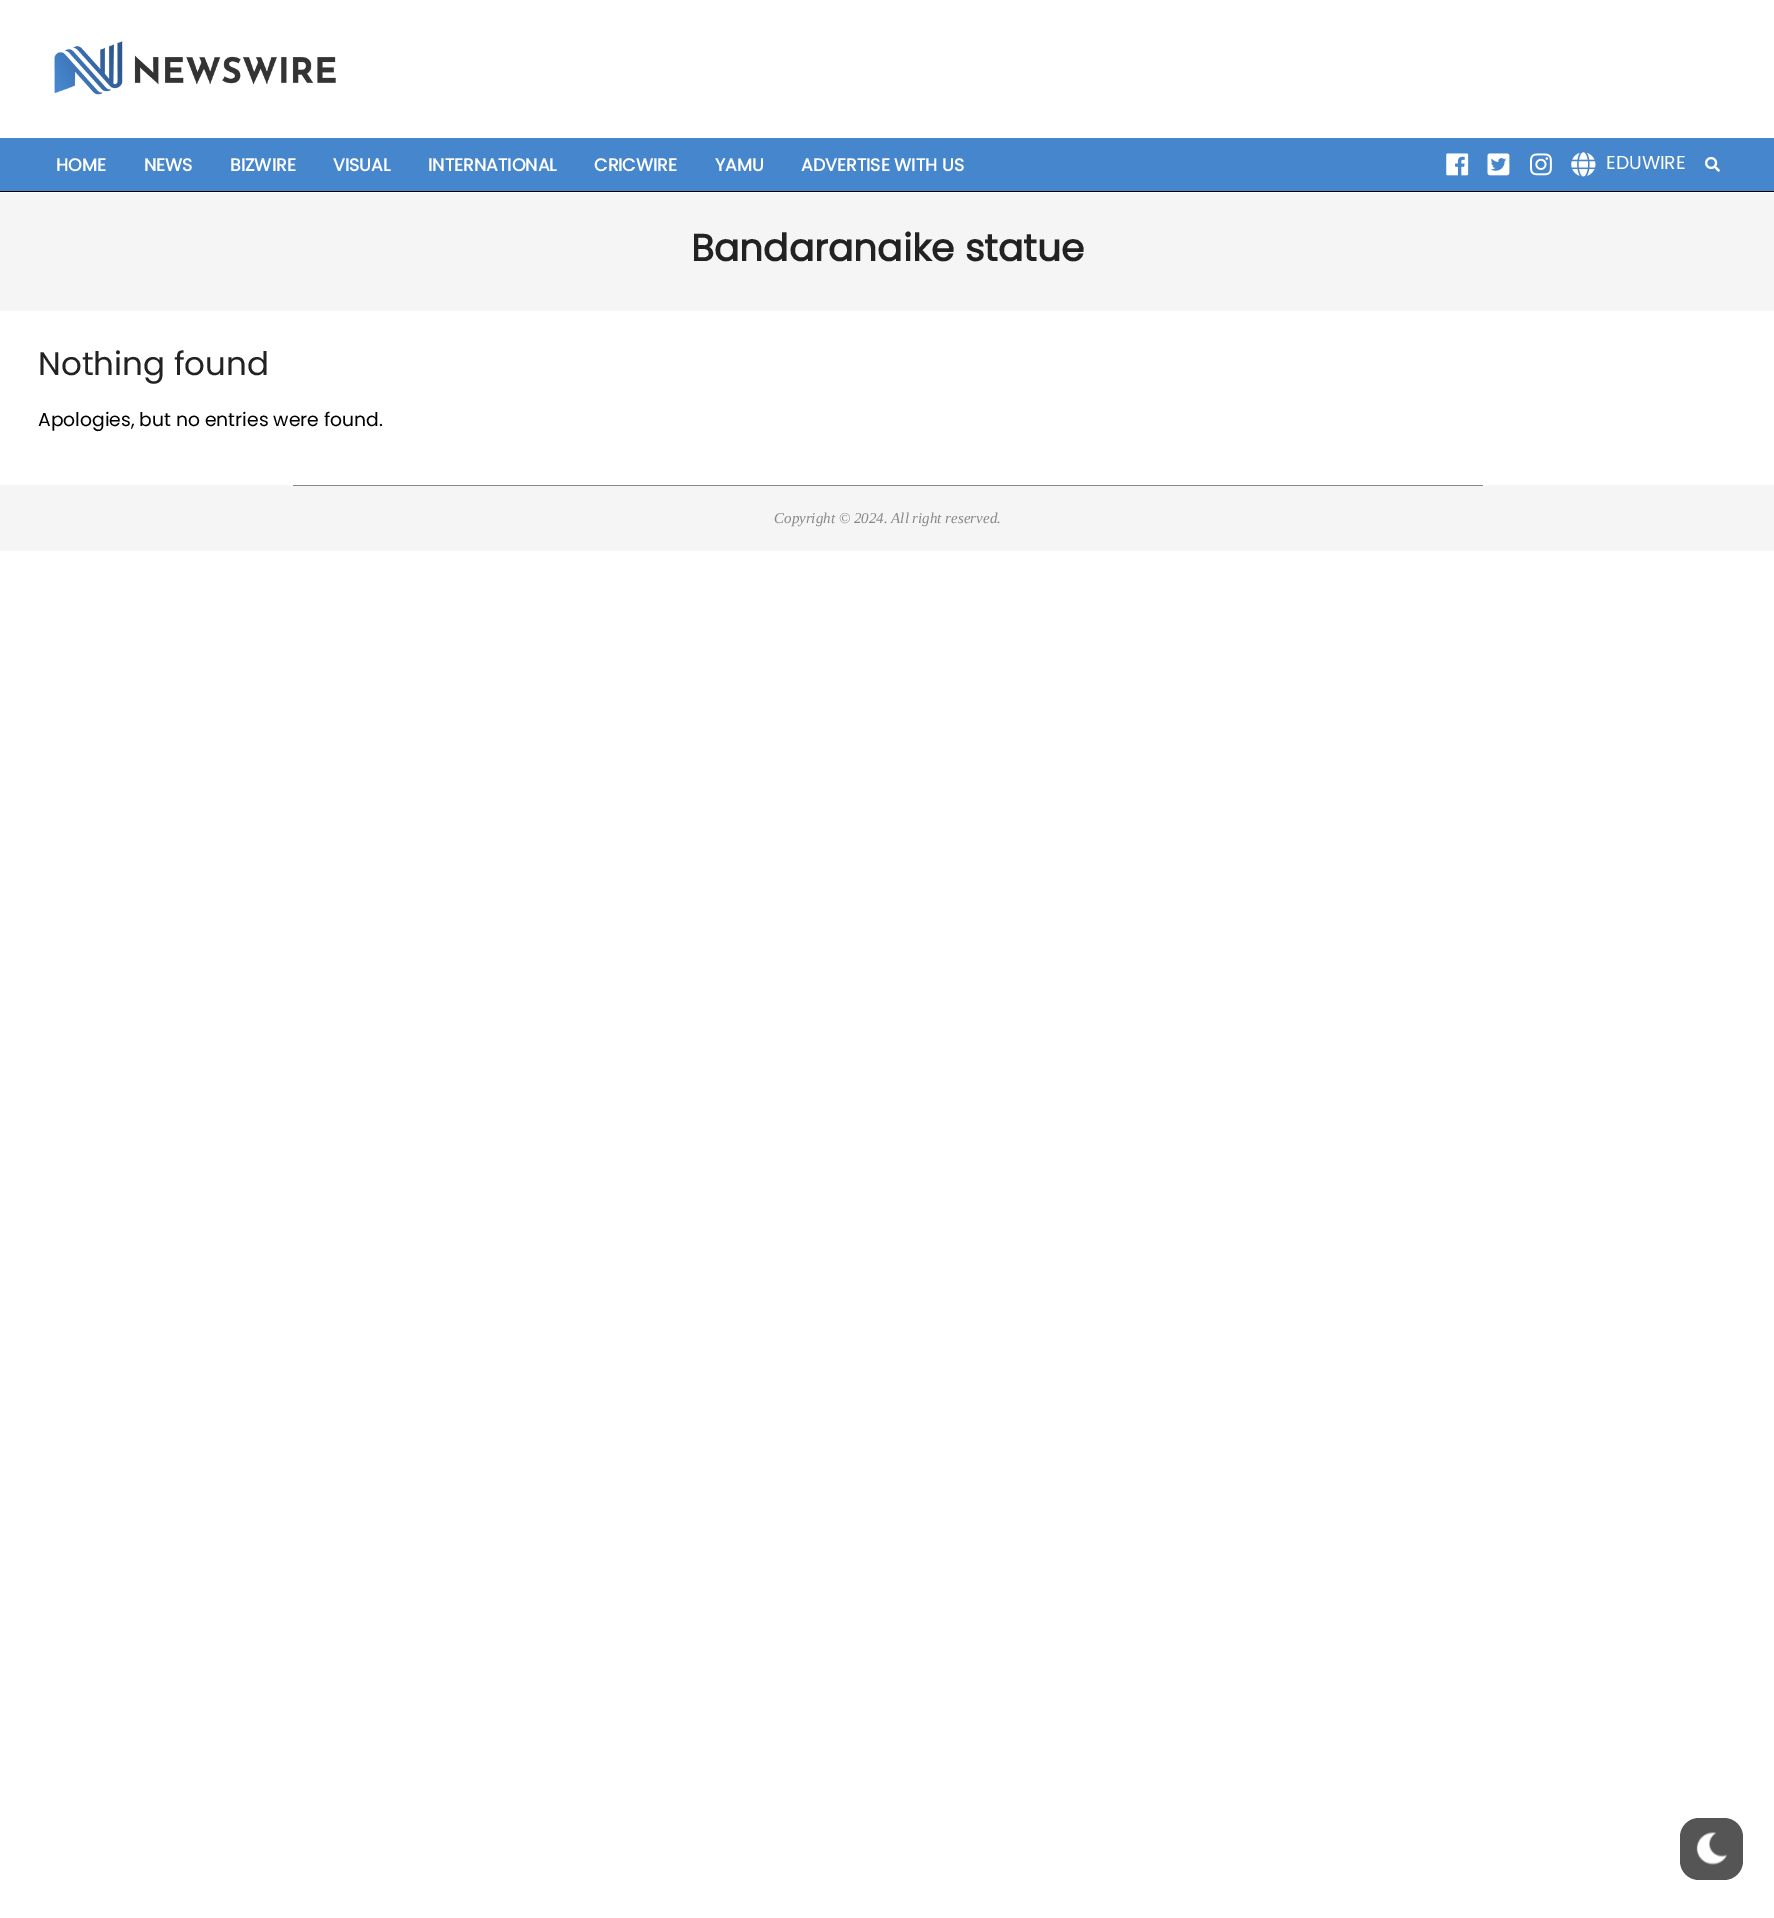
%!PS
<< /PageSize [1774 1918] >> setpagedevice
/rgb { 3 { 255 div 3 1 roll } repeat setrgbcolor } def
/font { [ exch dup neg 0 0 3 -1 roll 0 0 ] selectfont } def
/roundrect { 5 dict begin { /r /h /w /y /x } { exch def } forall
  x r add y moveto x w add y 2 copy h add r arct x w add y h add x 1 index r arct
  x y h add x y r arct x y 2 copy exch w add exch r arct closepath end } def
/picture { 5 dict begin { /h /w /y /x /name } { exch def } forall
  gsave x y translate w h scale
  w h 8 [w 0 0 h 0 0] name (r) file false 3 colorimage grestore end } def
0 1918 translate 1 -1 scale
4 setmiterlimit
255 255 255 rgb
0 0 1774 1918 rectfill
0 0 0 rgb
0 191 1774 1 rectfill
(img/1.rgb) 54 41 282 54 picture
70 134 205 rgb
0 138 1774 53 rectfill
(img/2.rgb) 1446 153 23 23 picture
(img/3.rgb) 1487 153 23 23 picture
(img/4.rgb) 1530 153 22 23 picture
(img/5.rgb) 1571 152 25 25 picture
(img/6.rgb) 1705 156 15 16 picture
[
  [0 193 1774 118 245 245 245]
  [0 485 1774 66 245 245 245]
  [293 485 1190 1 136 136 136]
] { aload pop rgb rectfill } forall
85 85 85 rgb
1680 1818 63 62 19 roundrect fill
(img/7.rgb) 1696 1832 31 33 picture
/Poppins-Bold 17.5 font
255 255 255 rgb
[
  [(HOME) 56 171]
  [(NEWS) 144 171]
  [(BIZWIRE) 230 171]
  [(VISUAL) 333 171]
  [(INTERNATIONAL) 428 171]
  [(CRICWIRE) 594 171]
  [(YAMU) 715 171]
  [(ADVERTISE WITH US) 801 171]
] { aload pop moveto show } forall
/Poppins-Regular 18.75 font
1606 169 moveto (EDUWIRE) show
/Poppins-Bold 37.5 font
34 34 34 rgb
691 261 moveto (Bandaranaike statue) show
/Poppins-Regular 32.5 font
38 375 moveto (Nothing found) show
/Poppins-Regular 18.75 font
0 0 0 rgb
38 426 moveto (Apologies, but no entries were found.) show
/LiberationSerif-Italic 15 font
136 136 136 rgb
774 523 moveto (Copyright © 2024. All right reserved.) show
showpage
